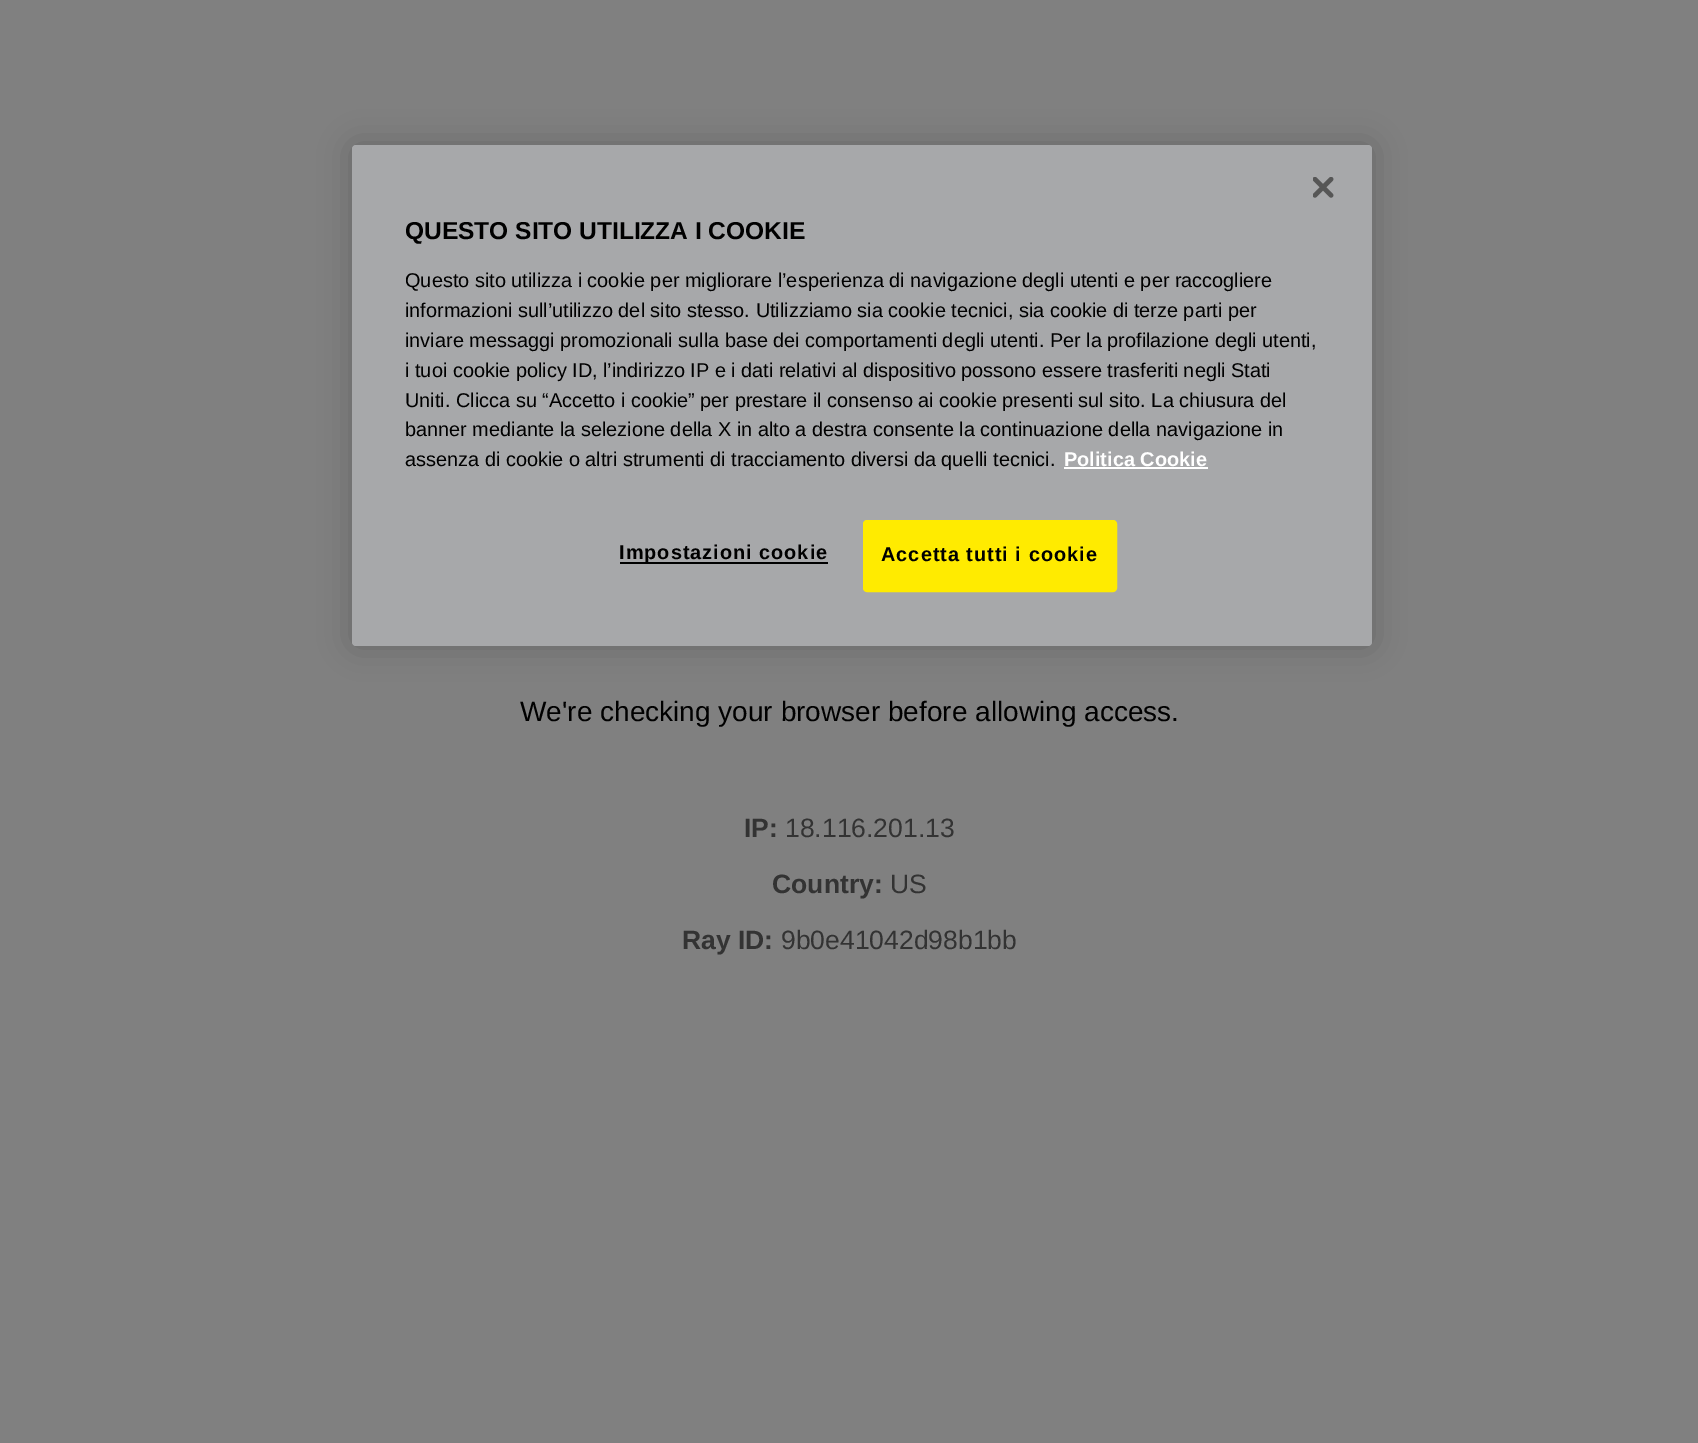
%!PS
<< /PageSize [1698 1443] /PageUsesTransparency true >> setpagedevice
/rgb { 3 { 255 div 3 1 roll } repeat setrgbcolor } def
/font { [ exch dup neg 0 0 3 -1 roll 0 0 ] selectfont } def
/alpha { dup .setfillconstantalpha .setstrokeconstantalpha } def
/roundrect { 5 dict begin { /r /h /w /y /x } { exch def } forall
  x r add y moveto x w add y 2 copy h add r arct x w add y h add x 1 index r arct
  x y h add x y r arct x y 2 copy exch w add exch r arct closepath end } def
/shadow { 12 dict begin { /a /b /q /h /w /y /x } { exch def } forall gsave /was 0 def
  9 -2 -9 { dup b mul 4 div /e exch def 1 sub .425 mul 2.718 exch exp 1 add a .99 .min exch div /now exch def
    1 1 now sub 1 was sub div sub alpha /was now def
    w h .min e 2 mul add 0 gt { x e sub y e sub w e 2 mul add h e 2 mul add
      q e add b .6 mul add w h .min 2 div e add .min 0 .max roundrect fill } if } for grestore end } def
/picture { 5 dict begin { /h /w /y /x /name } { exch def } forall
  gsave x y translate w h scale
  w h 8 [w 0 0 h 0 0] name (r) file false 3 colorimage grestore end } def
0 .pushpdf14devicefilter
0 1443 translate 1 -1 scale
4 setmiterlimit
128 128 128 rgb
0 0 1698 1443 rectfill
0 0 0 rgb
352 145 1020 501 4 16 0.2 shadow
167 168 170 rgb
352 145 1020 501 4 roundrect fill
(img/1.rgb) 1313 177 21 21 picture
255 255 255 rgb
1064 467 144 2 rectfill
0 0 0 rgb
620 562 208 2 rectfill
255 235 0 rgb
864 521 252 70 3 roundrect gsave fill grestore
2 setlinewidth
stroke
/LiberationSans-Bold 24.5 font
0 0 0 rgb
405 239 moveto (QUESTO SITO UTILIZZA I COOKIE) show
/LiberationSans-Regular 19.9 font
[
  [(Questo sito utilizza i cookie per migliorare l’esperienza di navigazione degli utenti e per raccogliere) 405 287]
  [(informazioni sull’utilizzo del sito stesso. Utilizziamo sia cookie tecnici, sia cookie di terze parti per) 405 317]
  [(inviare messaggi promozionali sulla base dei comportamenti degli utenti. Per la profilazione degli utenti,) 405 347]
  [(i tuoi cookie policy ID, l’indirizzo IP e i dati relativi al dispositivo possono essere trasferiti negli Stati) 405 377]
  [(Uniti. Clicca su “Accetto i cookie” per prestare il consenso ai cookie presenti sul sito. La chiusura del) 405 407]
  [(banner mediante la selezione della X in alto a destra consente la continuazione della navigazione in) 405 436]
  [(assenza di cookie o altri strumenti di tracciamento diversi da quelli tecnici.) 405 466]
] { aload pop moveto show } forall
/LiberationSans-Bold 19.9 font
255 255 255 rgb
1064 466 moveto (Politica Cookie) show
0 0 0 rgb
619 559 moveto 1 0 (Impostazioni cookie) ashow
881 561 moveto 1 0 (Accetta tutti i cookie) ashow
/LiberationSans-Regular 28 font
520 721 moveto (We're checking your browser before allowing access.) show
/LiberationSans-Bold 26.5 font
51 51 51 rgb
744 837 moveto (IP:) show
/LiberationSans-Regular 26.5 font
785 837 moveto (18.116.201.13) show
/LiberationSans-Bold 26.5 font
772 893 moveto (Country:) show
/LiberationSans-Regular 26.5 font
890 893 moveto (US) show
/LiberationSans-Bold 26.5 font
682 949 moveto (Ray ID:) show
/LiberationSans-Regular 26.5 font
781 949 moveto (9b0e41042d98b1bb) show
.poppdf14devicefilter showpage
